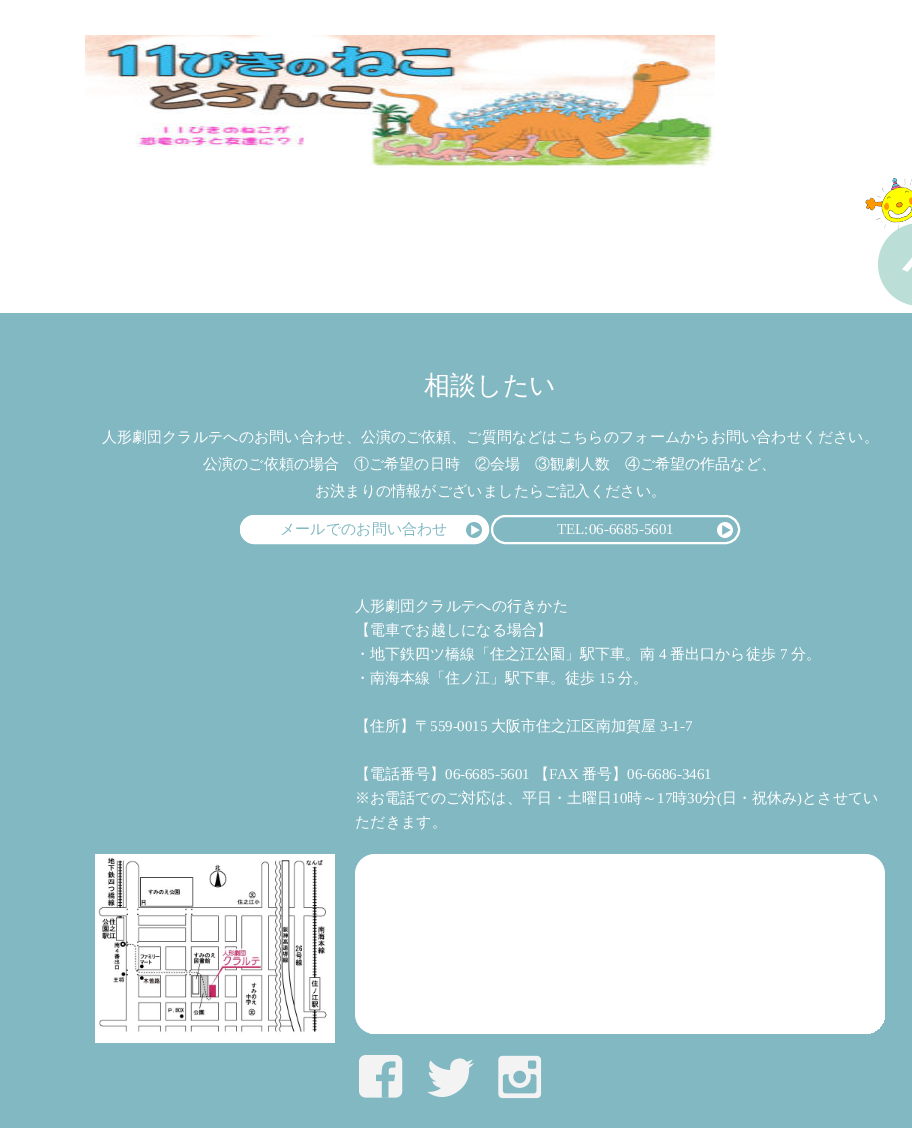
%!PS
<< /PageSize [912 1128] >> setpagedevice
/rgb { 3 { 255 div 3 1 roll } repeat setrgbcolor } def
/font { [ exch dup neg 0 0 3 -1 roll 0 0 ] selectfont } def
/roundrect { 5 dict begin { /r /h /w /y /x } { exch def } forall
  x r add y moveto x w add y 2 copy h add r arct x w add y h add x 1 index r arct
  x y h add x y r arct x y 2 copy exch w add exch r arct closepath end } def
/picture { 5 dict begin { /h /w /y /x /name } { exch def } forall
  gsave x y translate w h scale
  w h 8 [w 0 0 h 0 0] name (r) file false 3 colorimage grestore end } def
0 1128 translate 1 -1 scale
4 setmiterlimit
255 255 255 rgb
0 0 912 1128 rectfill
(img/1.rgb) 85 35 630 133 picture
129 184 194 rgb
0 313 912 815 rectfill
(img/2.rgb) 865 178 47 128 picture
255 255 255 rgb
240 515 249 29 14.5 roundrect fill
(img/3.rgb) 466 522 16 16 picture
2 setlinewidth
241 516 247 27 13.5 roundrect stroke
(img/4.rgb) 717 522 16 16 picture
492 516 247 27 13.5 roundrect stroke
355 854 530 180 20 roundrect fill
(img/5.rgb) 359 1055 44 43 picture
(img/6.rgb) 427 1058 47 39 picture
(img/7.rgb) 498 1055 44 44 picture
gsave
355 854 530 180 20 roundrect clip newpath
370 879 530 180 20 roundrect fill
grestore
(img/8.rgb) 95 854 240 189 picture
/WenQuanYiZenHei-Medium 26 font
424 394 moveto (相談したい) show
/WenQuanYiZenHei-Medium 15 font
[
  [(人形劇団クラルテへのお問い合わせ、公演のご依頼、ご質問などはこちらのフォームからお問い合わせください。) 102 442]
  [(公演のご依頼の場合　①ご希望の日時　②会場　③観劇人数　④ご希望の作品など、) 203 469]
  [(お決まりの情報がございましたらご記入ください。) 315 496]
] { aload pop moveto show } forall
129 184 194 rgb
280 534 moveto (メールでのお問い合わせ) show
/LiberationSerif-Regular 15 font
255 255 255 rgb
557 534 moveto (TEL:06-6685-5601) show
/WenQuanYiZenHei-Medium 15 font
[
  [(人形劇団クラルテへの行きかた) 355 611]
  [(【電車でお越しになる場合】) 355 635]
  [(・地下鉄四ツ橋線「住之江公園」駅下車。南) 355 659]
] { aload pop moveto show } forall
/LiberationSerif-Regular 15 font
659 659 moveto (4) show
/WenQuanYiZenHei-Medium 15 font
670 659 moveto (番出口から徒歩) show
/LiberationSerif-Regular 15 font
780 659 moveto (7) show
/WenQuanYiZenHei-Medium 15 font
791 659 moveto (分。) show
355 683 moveto (・南海本線「住ノ江」駅下車。徒歩) show
/LiberationSerif-Regular 15 font
599 683 moveto (15) show
/WenQuanYiZenHei-Medium 15 font
618 683 moveto (分。) show
355 731 moveto (【住所】〒) show
/LiberationSerif-Regular 15 font
430 731 moveto (559-0015) show
/WenQuanYiZenHei-Medium 15 font
491 731 moveto (大阪市住之江区南加賀屋) show
/LiberationSerif-Regular 15 font
660 731 moveto (3-1-7) show
/WenQuanYiZenHei-Medium 15 font
355 779 moveto (【電話番号】) show
/LiberationSerif-Regular 15 font
445 779 moveto (06-6685-5601) show
/WenQuanYiZenHei-Medium 15 font
534 779 moveto (【) show
/LiberationSerif-Regular 15 font
549 779 moveto (FAX) show
/WenQuanYiZenHei-Medium 15 font
582 779 moveto (番号】) show
/LiberationSerif-Regular 15 font
627 779 moveto (06-6686-3461) show
/WenQuanYiZenHei-Medium 15 font
355 803 moveto (※お電話でのご対応は、平日・土曜日) show
/LiberationSerif-Regular 15 font
612 803 moveto (10) show
/WenQuanYiZenHei-Medium 15 font
627 803 moveto (時～) show
/LiberationSerif-Regular 15 font
657 803 moveto (17) show
/WenQuanYiZenHei-Medium 15 font
672 803 moveto (時) show
/LiberationSerif-Regular 15 font
687 803 moveto (30) show
/WenQuanYiZenHei-Medium 15 font
702 803 moveto (分) show
/LiberationSerif-Regular 15 font
717 803 moveto (\() show
/WenQuanYiZenHei-Medium 15 font
722 803 moveto (日・祝休み) show
/LiberationSerif-Regular 15 font
797 803 moveto (\)) show
/WenQuanYiZenHei-Medium 15 font
802 803 moveto (とさせてい) show
355 827 moveto (ただきます。) show
showpage
